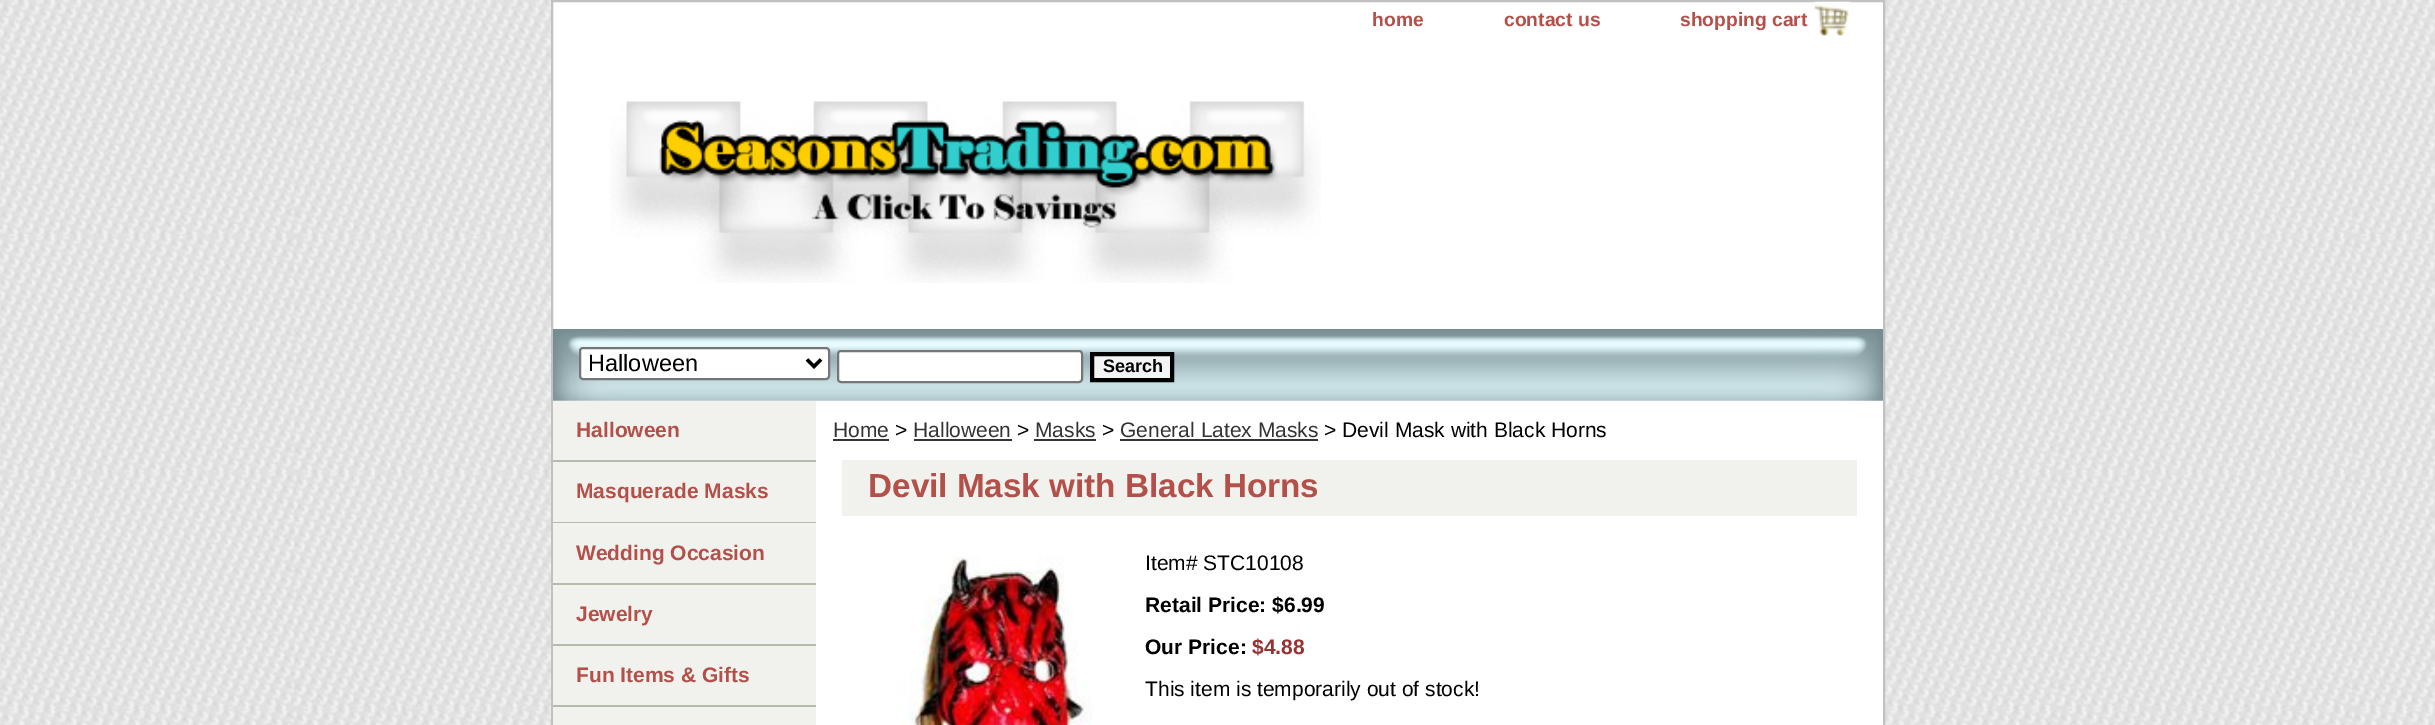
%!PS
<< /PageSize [2435 725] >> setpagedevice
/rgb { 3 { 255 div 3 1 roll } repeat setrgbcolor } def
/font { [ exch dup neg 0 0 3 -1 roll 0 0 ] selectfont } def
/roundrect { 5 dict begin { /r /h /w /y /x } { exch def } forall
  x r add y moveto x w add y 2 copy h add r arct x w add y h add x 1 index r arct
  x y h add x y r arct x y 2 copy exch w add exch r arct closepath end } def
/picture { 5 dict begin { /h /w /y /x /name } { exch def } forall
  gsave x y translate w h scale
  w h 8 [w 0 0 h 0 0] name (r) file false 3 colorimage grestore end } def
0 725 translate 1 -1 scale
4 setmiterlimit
255 255 255 rgb
0 0 2435 725 rectfill
(img/1.rgb) 0 0 2435 725 picture
552 1 moveto 1884 1 lineto 1884 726 lineto 552 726 lineto closepath gsave fill grestore
193 193 193 rgb
2 setlinewidth
stroke
(img/2.rgb) 1814 1 36 35 picture
(img/3.rgb) 610 101 711 182 picture
(img/4.rgb) 553 329 1330 72 picture
255 255 255 rgb
580 348 249 31 3 roundrect gsave fill grestore
118 118 118 rgb
stroke
0 0 0 rgb
3.5 setlinewidth
807 359.5 moveto 814 366.5 lineto 821 359.5 lineto stroke
255 255 255 rgb
838 351 244 31 3 roundrect gsave fill grestore
118 118 118 rgb
2 setlinewidth
stroke
244 244 244 rgb
1092 354 moveto 1172 354 lineto 1172 380 lineto 1092 380 lineto closepath gsave fill grestore
0 0 0 rgb
4 setlinewidth
stroke
[
  [553 401 263 324 241 242 237]
  [553 460 263 2 180 187 171]
  [553 522 263 1 180 187 171]
  [553 583 263 2 180 187 171]
  [553 644 263 2 180 187 171]
  [553 705 263 2 180 187 171]
  [833 439 56 2 51 51 51]
  [914 439 98 2 51 51 51]
  [1034 439 62 2 51 51 51]
  [1120 439 198 2 51 51 51]
  [842 460 1015 56 241 242 237]
] { aload pop rgb rectfill } forall
(img/5.rgb) 897 556 195 169 picture
/LiberationSans-Bold 19.25 font
179 80 74 rgb
[
  [(home) 1372 26]
  [(contact us) 1504 26]
  [(shopping cart) 1680 26]
] { aload pop moveto show } forall
/LiberationSans-Regular 23.5 font
0 0 0 rgb
588 371 moveto (Halloween) show
/LiberationSans-Bold 18 font
1103 372 moveto (Search) show
/LiberationSans-Bold 21 font
179 80 74 rgb
[
  [(Halloween) 576 437]
  [(Masquerade Masks) 576 498]
  [(Wedding Occasion) 576 560]
  [(Jewelry) 576 621]
  [(Fun Items & Gifts) 576 682]
] { aload pop moveto show } forall
/LiberationSans-Regular 21 font
51 51 51 rgb
833 437 moveto (Home) show
0 0 0 rgb
895 437 moveto (>) show
51 51 51 rgb
913 437 moveto (Halloween) show
0 0 0 rgb
1017 437 moveto (>) show
51 51 51 rgb
1035 437 moveto (Masks) show
0 0 0 rgb
1102 437 moveto (>) show
51 51 51 rgb
1120 437 moveto (General Latex Masks) show
0 0 0 rgb
1324 437 moveto (> Devil Mask with Black Horns) show
/LiberationSans-Bold 33.25 font
179 80 74 rgb
868 497 moveto (Devil Mask with Black Horns) show
/LiberationSans-Regular 21 font
0 0 0 rgb
1145 570 moveto (Item# STC10108) show
/LiberationSans-Bold 21 font
1145 612 moveto (Retail Price: $6.99) show
1145 654 moveto (Our Price:) show
153 51 51 rgb
1252 654 moveto ($4.88) show
/LiberationSans-Regular 21 font
0 0 0 rgb
1145 696 moveto (This item is temporarily out of stock!) show
showpage
